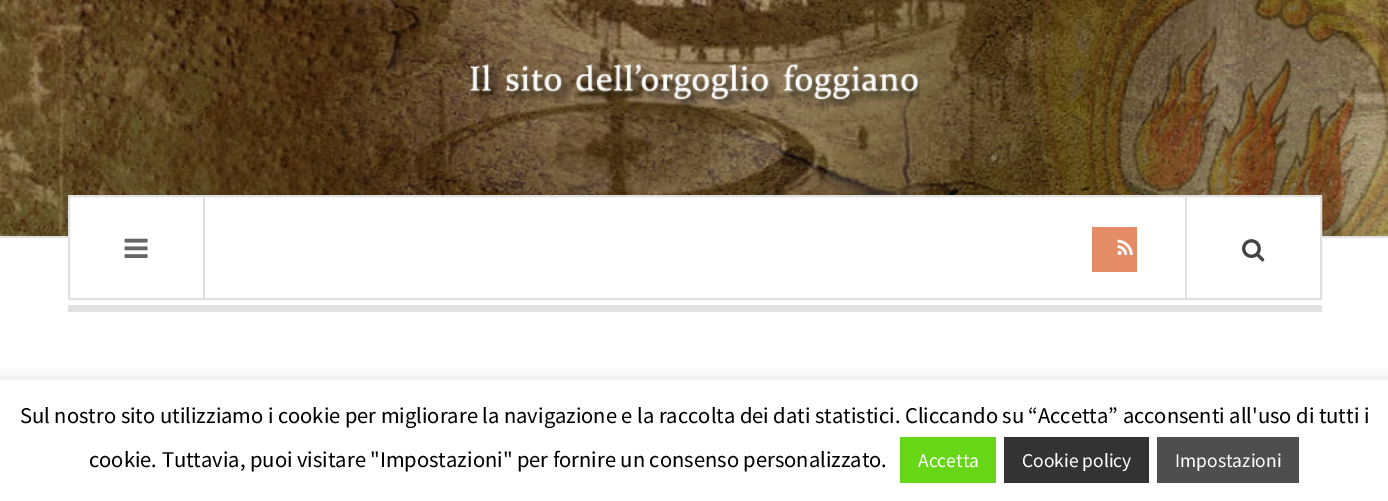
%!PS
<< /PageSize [1388 501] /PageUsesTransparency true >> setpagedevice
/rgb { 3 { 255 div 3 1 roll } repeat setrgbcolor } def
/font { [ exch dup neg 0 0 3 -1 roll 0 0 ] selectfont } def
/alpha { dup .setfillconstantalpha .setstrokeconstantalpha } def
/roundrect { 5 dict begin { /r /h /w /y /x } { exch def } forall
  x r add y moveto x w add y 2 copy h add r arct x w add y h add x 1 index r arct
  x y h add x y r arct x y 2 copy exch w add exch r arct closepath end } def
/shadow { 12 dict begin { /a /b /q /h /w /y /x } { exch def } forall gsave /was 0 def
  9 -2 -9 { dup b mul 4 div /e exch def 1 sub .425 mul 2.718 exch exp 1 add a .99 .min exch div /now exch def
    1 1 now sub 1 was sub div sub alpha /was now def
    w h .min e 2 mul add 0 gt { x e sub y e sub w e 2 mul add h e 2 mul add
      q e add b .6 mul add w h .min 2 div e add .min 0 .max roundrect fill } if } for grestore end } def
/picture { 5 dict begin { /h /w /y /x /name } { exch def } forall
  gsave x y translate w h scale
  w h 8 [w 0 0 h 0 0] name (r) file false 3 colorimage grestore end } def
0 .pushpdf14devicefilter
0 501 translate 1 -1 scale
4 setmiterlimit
255 255 255 rgb
0 0 1388 501 rectfill
(img/1.rgb) 0 0 1388 236 picture
225 225 225 rgb
0 236 1388 2 rectfill
(img/2.rgb) 469 0 451 107 picture
255 255 255 rgb
70 197 1250 41 rectfill
225 225 225 rgb
2 setlinewidth
69 196 1252 103 rectstroke
203 197 2 102 rectfill
(img/3.rgb) 124 238 24 20 picture
227 140 101 rgb
1092 227 45 45 rectfill
(img/4.rgb) 1117 239 16 16 picture
225 225 225 rgb
1185 197 2 102 rectfill
(img/5.rgb) 1242 239 23 23 picture
68 305 1254 7 rectfill
gsave
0 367 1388 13 rectclip
172 171 171 rgb
0 378 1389 122 0 7.5 0.3 shadow
grestore
[
  [900 437 96 46 102 214 23]
  [1004 437 145 46 51 51 51]
  [1157 437 142 46 79 78 78]
] { aload pop rgb rectfill } forall
/SourceSansPro-Regular 22.5 font
0 0 0 rgb
20 423 moveto (Sul nostro sito utilizziamo i cookie per migliorare la navigazione e la raccolta dei dati statistici. Cliccando su “Accetta” acconsenti all'uso di tutti i) show
89 467 moveto (cookie. Tuttavia, puoi visitare "Impostazioni" per fornire un consenso personalizzato.) show
/SourceSansPro-Regular 19.5 font
255 255 255 rgb
[
  [(Accetta) 918 467]
  [(Cookie policy) 1022 467]
  [(Impostazioni) 1175 467]
] { aload pop moveto show } forall
.poppdf14devicefilter showpage
